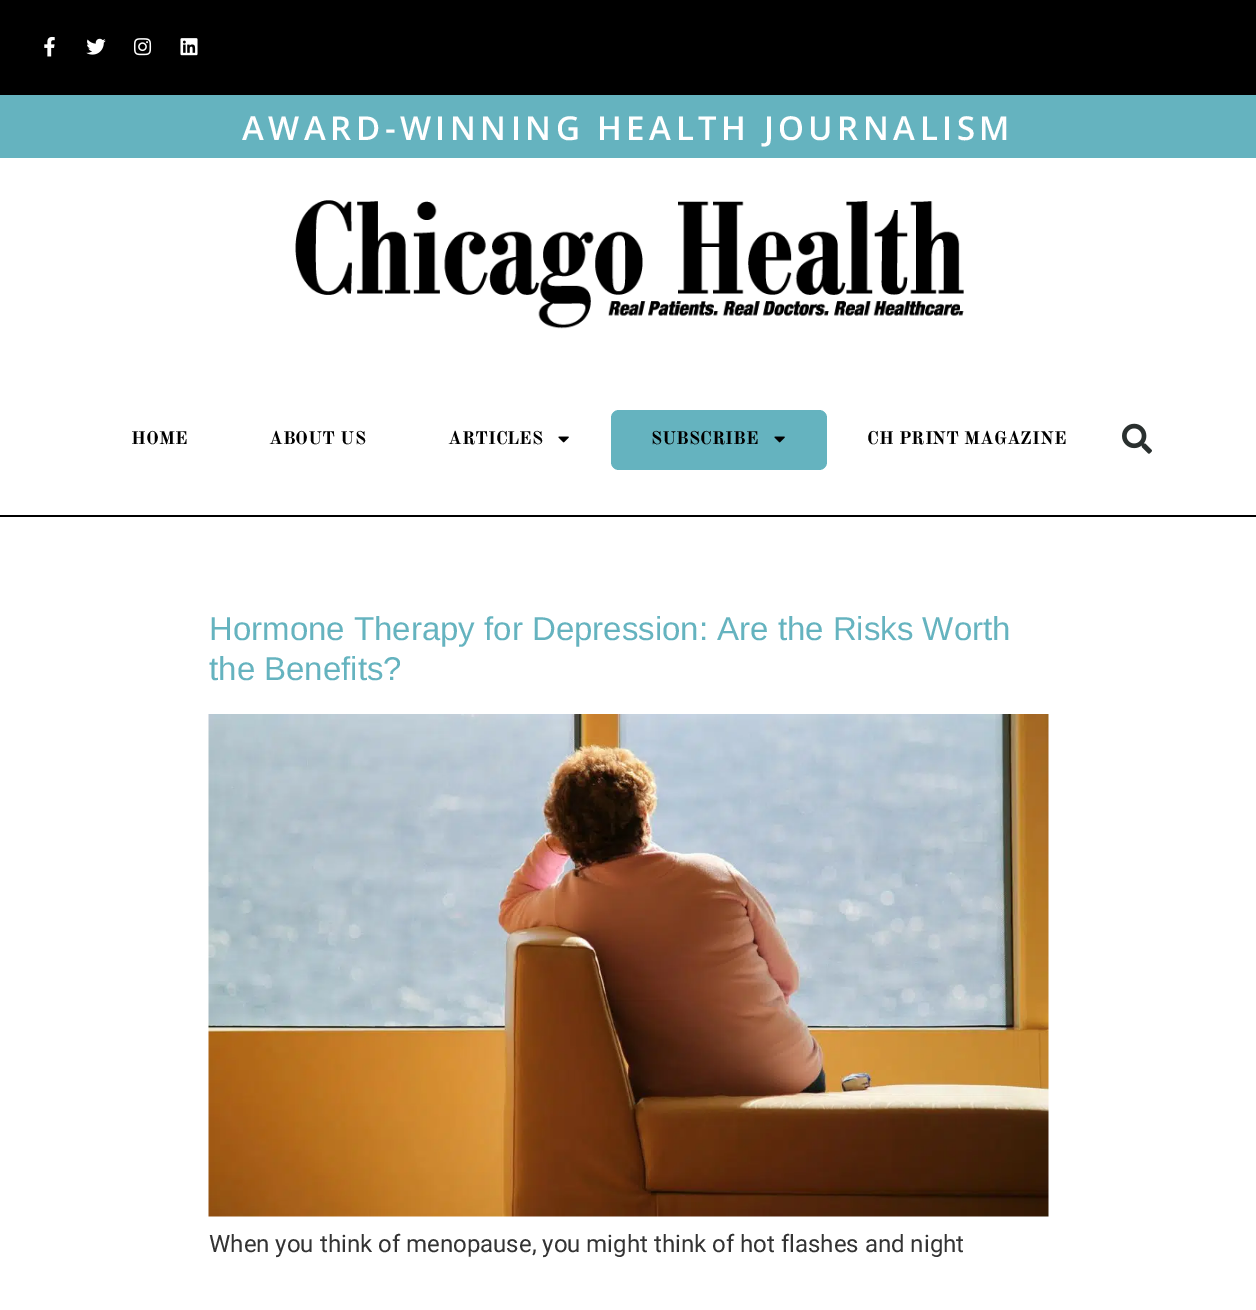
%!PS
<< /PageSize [1256 1310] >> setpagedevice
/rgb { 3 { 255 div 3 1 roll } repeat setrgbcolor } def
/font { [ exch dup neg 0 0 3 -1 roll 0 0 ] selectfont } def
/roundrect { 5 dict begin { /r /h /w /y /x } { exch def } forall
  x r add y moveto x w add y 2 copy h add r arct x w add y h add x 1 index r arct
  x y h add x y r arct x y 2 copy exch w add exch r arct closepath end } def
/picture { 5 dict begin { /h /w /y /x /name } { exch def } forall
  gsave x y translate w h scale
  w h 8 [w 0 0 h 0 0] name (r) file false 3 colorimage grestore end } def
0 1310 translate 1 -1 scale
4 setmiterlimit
255 255 255 rgb
0 0 1256 1310 rectfill
0 0 0 rgb
0 0 1256 95 rectfill
(img/1.rgb) 44 36 11 21 picture
(img/2.rgb) 86 38 20 17 picture
(img/3.rgb) 133 38 19 18 picture
(img/4.rgb) 180 38 18 18 picture
101 179 191 rgb
0 95 1256 63 rectfill
(img/5.rgb) 295 200 669 129 picture
0 0 0 rgb
0 515 1256 2 rectfill
(img/6.rgb) 558 436 11 7 picture
101 179 191 rgb
611 410 216 60 8 roundrect fill
(img/7.rgb) 774 436 11 7 picture
(img/8.rgb) 1122 423 30 31 picture
(img/9.rgb) 208 714 841 503 picture
/OpenSans-SemiBold 33 font
255 255 255 rgb
242 140 moveto 4.5 0 (AWARD-WINNING HEALTH JOURNALISM) ashow
/OldStandardTT-Bold 18 font
0 0 0 rgb
[
  [(HOME) 131 444]
  [(ABOUT US) 269 444]
  [(ARTICLES) 448 444]
  [(SUBSCRIBE) 651 444]
  [(CH PRINT MAGAZINE) 867 444]
] { aload pop moveto show } forall
/LiberationSans-Regular 33 font
101 179 191 rgb
209 640 moveto (Hormone Therapy for Depression: Are the Risks Worth) show
209 680 moveto (the Benefits?) show
/Roboto-Regular 24 font
51 51 51 rgb
209 1252 moveto (When you think of menopause, you might think of hot flashes and night) show
showpage
